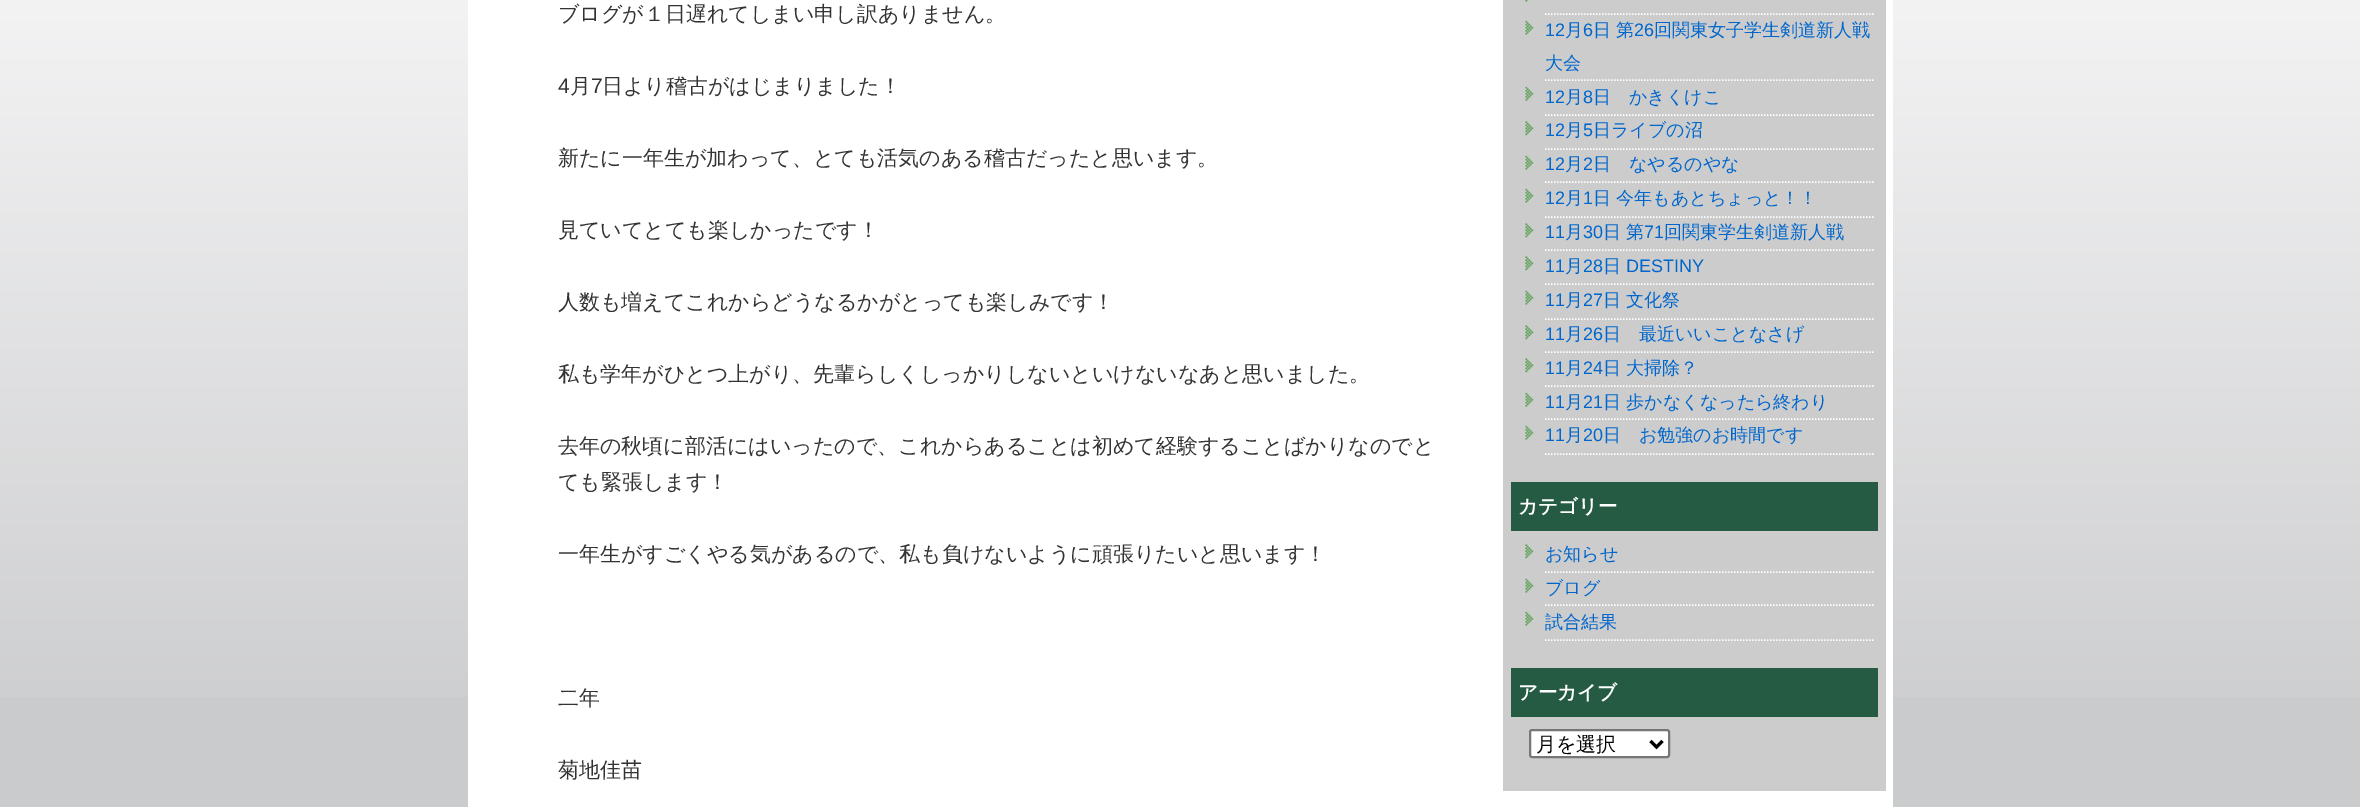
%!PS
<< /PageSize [2360 807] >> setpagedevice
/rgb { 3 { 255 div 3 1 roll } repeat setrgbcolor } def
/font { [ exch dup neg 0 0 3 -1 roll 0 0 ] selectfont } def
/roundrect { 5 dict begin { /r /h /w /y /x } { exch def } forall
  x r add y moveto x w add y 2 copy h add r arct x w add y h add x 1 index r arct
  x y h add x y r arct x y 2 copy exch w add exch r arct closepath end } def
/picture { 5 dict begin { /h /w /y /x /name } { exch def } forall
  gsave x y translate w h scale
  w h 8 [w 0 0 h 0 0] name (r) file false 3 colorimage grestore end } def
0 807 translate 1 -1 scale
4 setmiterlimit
202 203 204 rgb
0 0 2360 807 rectfill
(img/1.rgb) 0 0 2360 697 picture
255 255 255 rgb
468 0 1425 807 rectfill
204 204 204 rgb
1503 0 383 791 rectfill
255 255 255 rgb
1.5 setlinewidth
[1.5 1.5] 0 setdash
1545 14 moveto 1875 14 lineto stroke
(img/2.rgb) 1525 0 4 2 picture
1545 80 moveto 1875 80 lineto stroke
(img/3.rgb) 1525 20 9 15 picture
1545 115 moveto 1875 115 lineto stroke
(img/3.rgb) 1525 86 9 15 picture
1545 149 moveto 1875 149 lineto stroke
(img/4.rgb) 1525 121 9 15 picture
1545 182 moveto 1875 182 lineto stroke
(img/3.rgb) 1525 155 9 15 picture
1545 217 moveto 1875 217 lineto stroke
(img/3.rgb) 1525 188 9 15 picture
1545 250 moveto 1875 250 lineto stroke
(img/4.rgb) 1525 223 9 15 picture
1545 284 moveto 1875 284 lineto stroke
(img/4.rgb) 1525 256 9 15 picture
1545 319 moveto 1875 319 lineto stroke
(img/3.rgb) 1525 290 9 15 picture
1545 352 moveto 1875 352 lineto stroke
(img/4.rgb) 1525 325 9 15 picture
1545 386 moveto 1875 386 lineto stroke
(img/4.rgb) 1525 358 9 15 picture
1545 419 moveto 1875 419 lineto stroke
(img/3.rgb) 1525 392 9 15 picture
1545 454 moveto 1875 454 lineto stroke
(img/3.rgb) 1525 425 9 15 picture
37 91 67 rgb
1511 482 367 49 rectfill
255 255 255 rgb
1545 572 moveto 1875 572 lineto stroke
(img/4.rgb) 1525 544 9 15 picture
1545 605 moveto 1875 605 lineto stroke
(img/3.rgb) 1525 578 9 15 picture
1545 640 moveto 1875 640 lineto stroke
(img/3.rgb) 1525 611 9 15 picture
37 91 67 rgb
1511 668 367 49 rectfill
255 255 255 rgb
1530 730 139 27 2 roundrect gsave fill grestore
118 118 118 rgb
2 setlinewidth
[] 0 setdash
stroke
0 0 0 rgb
3 setlinewidth
1650.5 741 moveto 1656.5 747 lineto 1662.5 741 lineto stroke
/WenQuanYiZenHei-Medium 21 font
51 51 51 rgb
558 21 moveto (ブログが１日遅れてしまい申し訳ありません。) show
/LiberationSans-Regular 21 font
558 93 moveto (4) show
/WenQuanYiZenHei-Medium 21 font
570 93 moveto (月) show
/LiberationSans-Regular 21 font
591 93 moveto (7) show
/WenQuanYiZenHei-Medium 21 font
[
  [(日より稽古がはじまりました！) 602 93]
  [(新たに一年生が加わって、とても活気のある稽古だったと思います。) 558 165]
  [(見ていてとても楽しかったです！) 558 237]
  [(人数も増えてこれからどうなるかがとっても楽しみです！) 558 309]
  [(私も学年がひとつ上がり、先輩らしくしっかりしないといけないなあと思いました。) 558 381]
  [(去年の秋頃に部活にはいったので、これからあることは初めて経験することばかりなのでと) 558 453]
  [(ても緊張します！) 558 489]
  [(一年生がすごくやる気があるので、私も負けないように頑張りたいと思います！) 558 561]
  [(二年) 558 705]
  [(菊地佳苗) 558 777]
] { aload pop moveto show } forall
/LiberationSans-Regular 18 font
0 102 204 rgb
1545 36 moveto (12) show
/WenQuanYiZenHei-Medium 18 font
1565 36 moveto (月) show
/LiberationSans-Regular 18 font
1583 36 moveto (6) show
/WenQuanYiZenHei-Medium 18 font
1593 36 moveto (日 第) show
/LiberationSans-Regular 18 font
1634 36 moveto (26) show
/WenQuanYiZenHei-Medium 18 font
1654 36 moveto (回関東女子学生剣道新人戦) show
1545 69 moveto (大会) show
/LiberationSans-Regular 18 font
1545 103 moveto (12) show
/WenQuanYiZenHei-Medium 18 font
1565 103 moveto (月) show
/LiberationSans-Regular 18 font
1583 103 moveto (8) show
/WenQuanYiZenHei-Medium 18 font
1593 103 moveto (日　かきくけこ) show
/LiberationSans-Regular 18 font
1545 136 moveto (12) show
/WenQuanYiZenHei-Medium 18 font
1565 136 moveto (月) show
/LiberationSans-Regular 18 font
1583 136 moveto (5) show
/WenQuanYiZenHei-Medium 18 font
1593 136 moveto (日ライブの沼) show
/LiberationSans-Regular 18 font
1545 170 moveto (12) show
/WenQuanYiZenHei-Medium 18 font
1565 170 moveto (月) show
/LiberationSans-Regular 18 font
1583 170 moveto (2) show
/WenQuanYiZenHei-Medium 18 font
1593 170 moveto (日　なやるのやな) show
/LiberationSans-Regular 18 font
1545 204 moveto (12) show
/WenQuanYiZenHei-Medium 18 font
1565 204 moveto (月) show
/LiberationSans-Regular 18 font
1583 204 moveto (1) show
/WenQuanYiZenHei-Medium 18 font
1593 204 moveto (日 今年もあとちょっと！！) show
/LiberationSans-Regular 18 font
1545 238 moveto (11) show
/WenQuanYiZenHei-Medium 18 font
1565 238 moveto (月) show
/LiberationSans-Regular 18 font
1583 238 moveto (30) show
/WenQuanYiZenHei-Medium 18 font
1603 238 moveto (日 第) show
/LiberationSans-Regular 18 font
1644 238 moveto (71) show
/WenQuanYiZenHei-Medium 18 font
1664 238 moveto (回関東学生剣道新人戦) show
/LiberationSans-Regular 18 font
1545 272 moveto (11) show
/WenQuanYiZenHei-Medium 18 font
1565 272 moveto (月) show
/LiberationSans-Regular 18 font
1583 272 moveto (28) show
/WenQuanYiZenHei-Medium 18 font
1603 272 moveto (日) show
/LiberationSans-Regular 18 font
1626 272 moveto (DESTINY) show
1545 306 moveto (11) show
/WenQuanYiZenHei-Medium 18 font
1565 306 moveto (月) show
/LiberationSans-Regular 18 font
1583 306 moveto (27) show
/WenQuanYiZenHei-Medium 18 font
1603 306 moveto (日 文化祭) show
/LiberationSans-Regular 18 font
1545 340 moveto (11) show
/WenQuanYiZenHei-Medium 18 font
1565 340 moveto (月) show
/LiberationSans-Regular 18 font
1583 340 moveto (26) show
/WenQuanYiZenHei-Medium 18 font
1603 340 moveto (日　最近いいことなさげ) show
/LiberationSans-Regular 18 font
1545 374 moveto (11) show
/WenQuanYiZenHei-Medium 18 font
1565 374 moveto (月) show
/LiberationSans-Regular 18 font
1583 374 moveto (24) show
/WenQuanYiZenHei-Medium 18 font
1603 374 moveto (日 大掃除？) show
/LiberationSans-Regular 18 font
1545 408 moveto (11) show
/WenQuanYiZenHei-Medium 18 font
1565 408 moveto (月) show
/LiberationSans-Regular 18 font
1583 408 moveto (21) show
/WenQuanYiZenHei-Medium 18 font
1603 408 moveto (日 歩かなくなったら終わり) show
/LiberationSans-Regular 18 font
1545 441 moveto (11) show
/WenQuanYiZenHei-Medium 18 font
1565 441 moveto (月) show
/LiberationSans-Regular 18 font
1583 441 moveto (20) show
/WenQuanYiZenHei-Medium 18 font
1603 441 moveto (日　お勉強のお時間です) show
/WenQuanYiZenHei-Bold 19.5 font
255 255 255 rgb
1518 513 moveto (カテゴリー) show
/WenQuanYiZenHei-Medium 18 font
0 102 204 rgb
[
  [(お知らせ) 1545 560]
  [(ブログ) 1545 594]
  [(試合結果) 1545 628]
] { aload pop moveto show } forall
/WenQuanYiZenHei-Bold 19.5 font
255 255 255 rgb
1518 699 moveto (アーカイブ) show
/WenQuanYiZenHei-Medium 20 font
0 0 0 rgb
1536 751 moveto (月を選択) show
showpage
